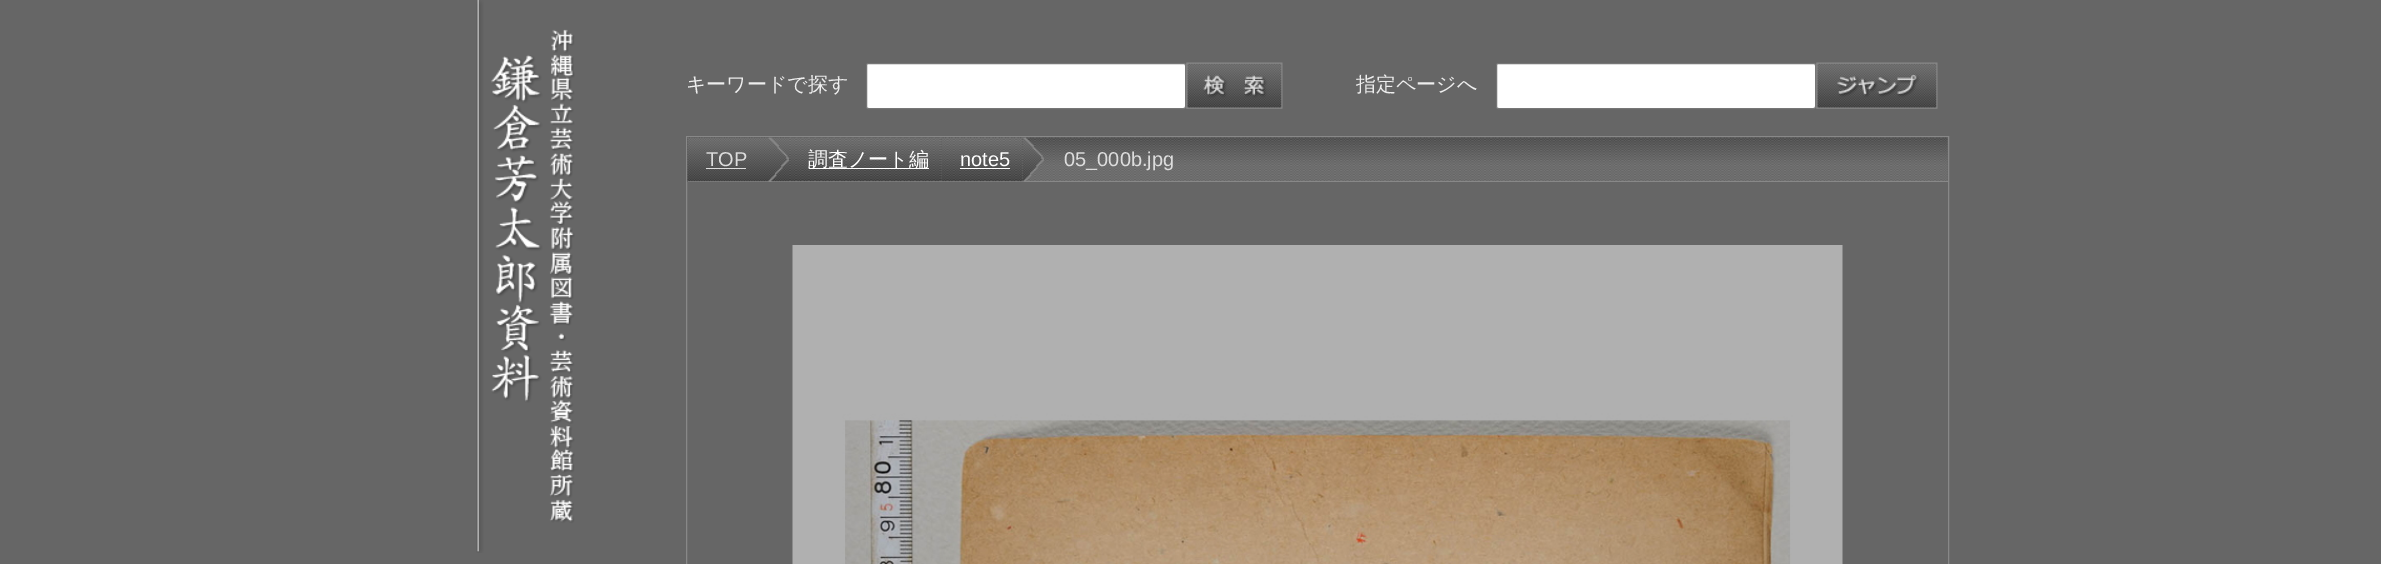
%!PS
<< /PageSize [2381 564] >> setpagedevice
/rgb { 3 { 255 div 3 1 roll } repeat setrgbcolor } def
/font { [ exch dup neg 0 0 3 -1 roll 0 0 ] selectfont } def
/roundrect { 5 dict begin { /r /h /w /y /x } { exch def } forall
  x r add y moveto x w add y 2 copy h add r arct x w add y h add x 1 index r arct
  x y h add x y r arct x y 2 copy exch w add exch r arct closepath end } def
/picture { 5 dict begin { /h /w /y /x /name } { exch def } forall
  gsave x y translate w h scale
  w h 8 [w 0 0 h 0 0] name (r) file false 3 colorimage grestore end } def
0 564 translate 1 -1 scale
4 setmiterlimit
102 102 102 rgb
0 0 2381 564 rectfill
(img/1.rgb) 476 0 99 553 picture
255 255 255 rgb
866.5 63.5 319 45 2 roundrect gsave fill grestore
118 118 118 rgb
stroke
(img/2.rgb) 1186 62 97 47 picture
255 255 255 rgb
1496.5 63.5 319 45 2 roundrect gsave fill grestore
118 118 118 rgb
stroke
(img/3.rgb) 1816 62 122 47 picture
136 136 136 rgb
686.5 136.5 1262 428 rectstroke
(img/4.rgb) 687 137 1261 45 picture
688 181 1260 1 rectfill
(img/5.rgb) 687 137 103 45 picture
221 221 221 rgb
706 168 40 1 rectfill
(img/6.rgb) 790 137 152 45 picture
255 255 255 rgb
809 168 120 1 rectfill
(img/7.rgb) 941 137 82 45 picture
960 168 50 1 rectfill
(img/8.rgb) 1022 137 22 45 picture
(img/9.rgb) 792 245 1051 319 picture
/WenQuanYiZenHei-Medium 20 font
238 238 238 rgb
686 91 moveto (キーワードで探す) show
1356 91 moveto (指定ページへ) show
/LiberationSans-Regular 20 font
221 221 221 rgb
706 166 moveto (TOP) show
/WenQuanYiZenHei-Medium 20 font
255 255 255 rgb
808 166 moveto (調査ノート編) show
/LiberationSans-Regular 20 font
960 166 moveto (note5) show
221 221 221 rgb
1064 166 moveto (05_000b.jpg) show
showpage
